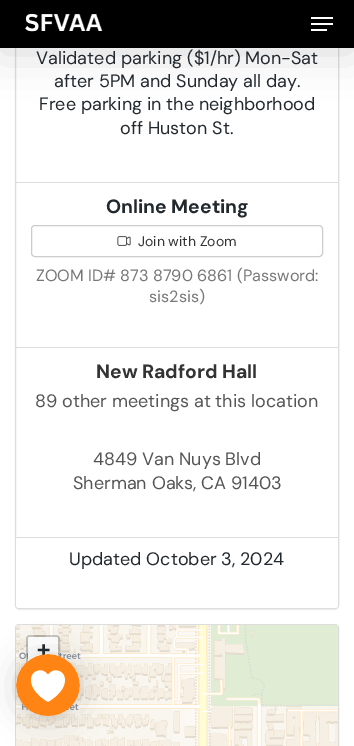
%!PS
<< /PageSize [354 746] /PageUsesTransparency true >> setpagedevice
/rgb { 3 { 255 div 3 1 roll } repeat setrgbcolor } def
/font { [ exch dup neg 0 0 3 -1 roll 0 0 ] selectfont } def
/alpha { dup .setfillconstantalpha .setstrokeconstantalpha } def
/roundrect { 5 dict begin { /r /h /w /y /x } { exch def } forall
  x r add y moveto x w add y 2 copy h add r arct x w add y h add x 1 index r arct
  x y h add x y r arct x y 2 copy exch w add exch r arct closepath end } def
/shadow { 12 dict begin { /a /b /q /h /w /y /x } { exch def } forall gsave /was 0 def
  9 -2 -9 { dup b mul 4 div /e exch def 1 sub .425 mul 2.718 exch exp 1 add a .99 .min exch div /now exch def
    1 1 now sub 1 was sub div sub alpha /was now def
    w h .min e 2 mul add 0 gt { x e sub y e sub w e 2 mul add h e 2 mul add
      q e add b .6 mul add w h .min 2 div e add .min 0 .max roundrect fill } if } for grestore end } def
/picture { 5 dict begin { /h /w /y /x /name } { exch def } forall
  gsave x y translate w h scale
  w h 8 [w 0 0 h 0 0] name (r) file false 3 colorimage grestore end } def
0 .pushpdf14devicefilter
0 746 translate 1 -1 scale
4 setmiterlimit
255 255 255 rgb
0 0 354 746 rectfill
0 0 0 rgb
15 -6 324 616 4 0.5 0.05 shadow
255 255 255 rgb
15.5 -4.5 323 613 3.5 roundrect gsave fill grestore
221 221 221 rgb
stroke
0 0 0 rgb
0 3 354 48 0 22.5 0.15 shadow
0 0 354 48 rectfill
(img/1.rgb) 25 13 78 19 picture
[
  [311 17 22 2 255 255 255]
  [311 29 16 2 255 255 255]
  [311 23 22 2 255 255 255]
  [16 182 322 1 221 221 221]
  [16 347 322 1 221 221 221]
] { aload pop rgb rectfill } forall
204 204 204 rgb
31.5 225.5 291 31 3.5 roundrect stroke
(img/2.rgb) 117 236 14 10 picture
255 255 255 rgb
16 537 moveto 338 537 lineto 338 605 lineto 338 606.5 336.5 608 335 608 curveto 19 608 lineto 17.5 608 16 606.5 16 605 curveto closepath fill
221 221 221 rgb
16 537 322 1 rectfill
15.5 624.5 323 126 3.5 roundrect stroke
(img/3.rgb) 16 625 169 100 picture
(img/4.rgb) 185 625 153 100 picture
(img/5.rgb) 16 725 169 21 picture
(img/6.rgb) 185 725 153 21 picture
0.2 alpha
0 0 0 rgb
2 setlinewidth
27 636 32 62 3 roundrect stroke
1 alpha
255 255 255 rgb
30 637 moveto 56 637 lineto 57 637 58 638 58 639 curveto 58 667 lineto 28 667 lineto 28 639 lineto 28 638 29 637 30 637 curveto closepath fill
0 0 0 rgb
16 656 64 62 31 16 0.16 shadow
16 655 64 62 31 3 0.06 shadow
/DMSans-Regular 18 font
34 41 46 rgb
[
  [(Validated parking \($1/hr\) Mon-Sat) 36 64]
  [(after 5PM and Sunday all day.) 54 87]
  [(Free parking in the neighborhood) 39 110]
  [(off Huston St.) 120 134]
] { aload pop moveto show } forall
/DMSans-Bold 19.25 font
106 213 moveto (Online Meeting) show
/DMSans-Regular 14 font
51 51 51 rgb
138 246 moveto (Join with Zoom) show
/DMSans-Regular 16.25 font
119 119 119 rgb
36 281 moveto (ZOOM ID# 873 8790 6861 \(Password:) show
149 302 moveto (sis2sis\)) show
/DMSans-Bold 19.25 font
51 51 51 rgb
96 378 moveto (New Radford Hall) show
/DMSans-Regular 18 font
85 85 85 rgb
[
  [(89 other meetings at this location) 35 407]
  [(4849 Van Nuys Blvd) 93 465]
  [(Sherman Oaks, CA 91403) 73 489]
] { aload pop moveto show } forall
34 41 46 rgb
69 565 moveto (Updated October 3, 2024) show
/DejaVuSansMono-Bold 22 font
37 657 moveto (+) show
(img/7.rgb) 16 654 64 62 picture
.poppdf14devicefilter showpage
